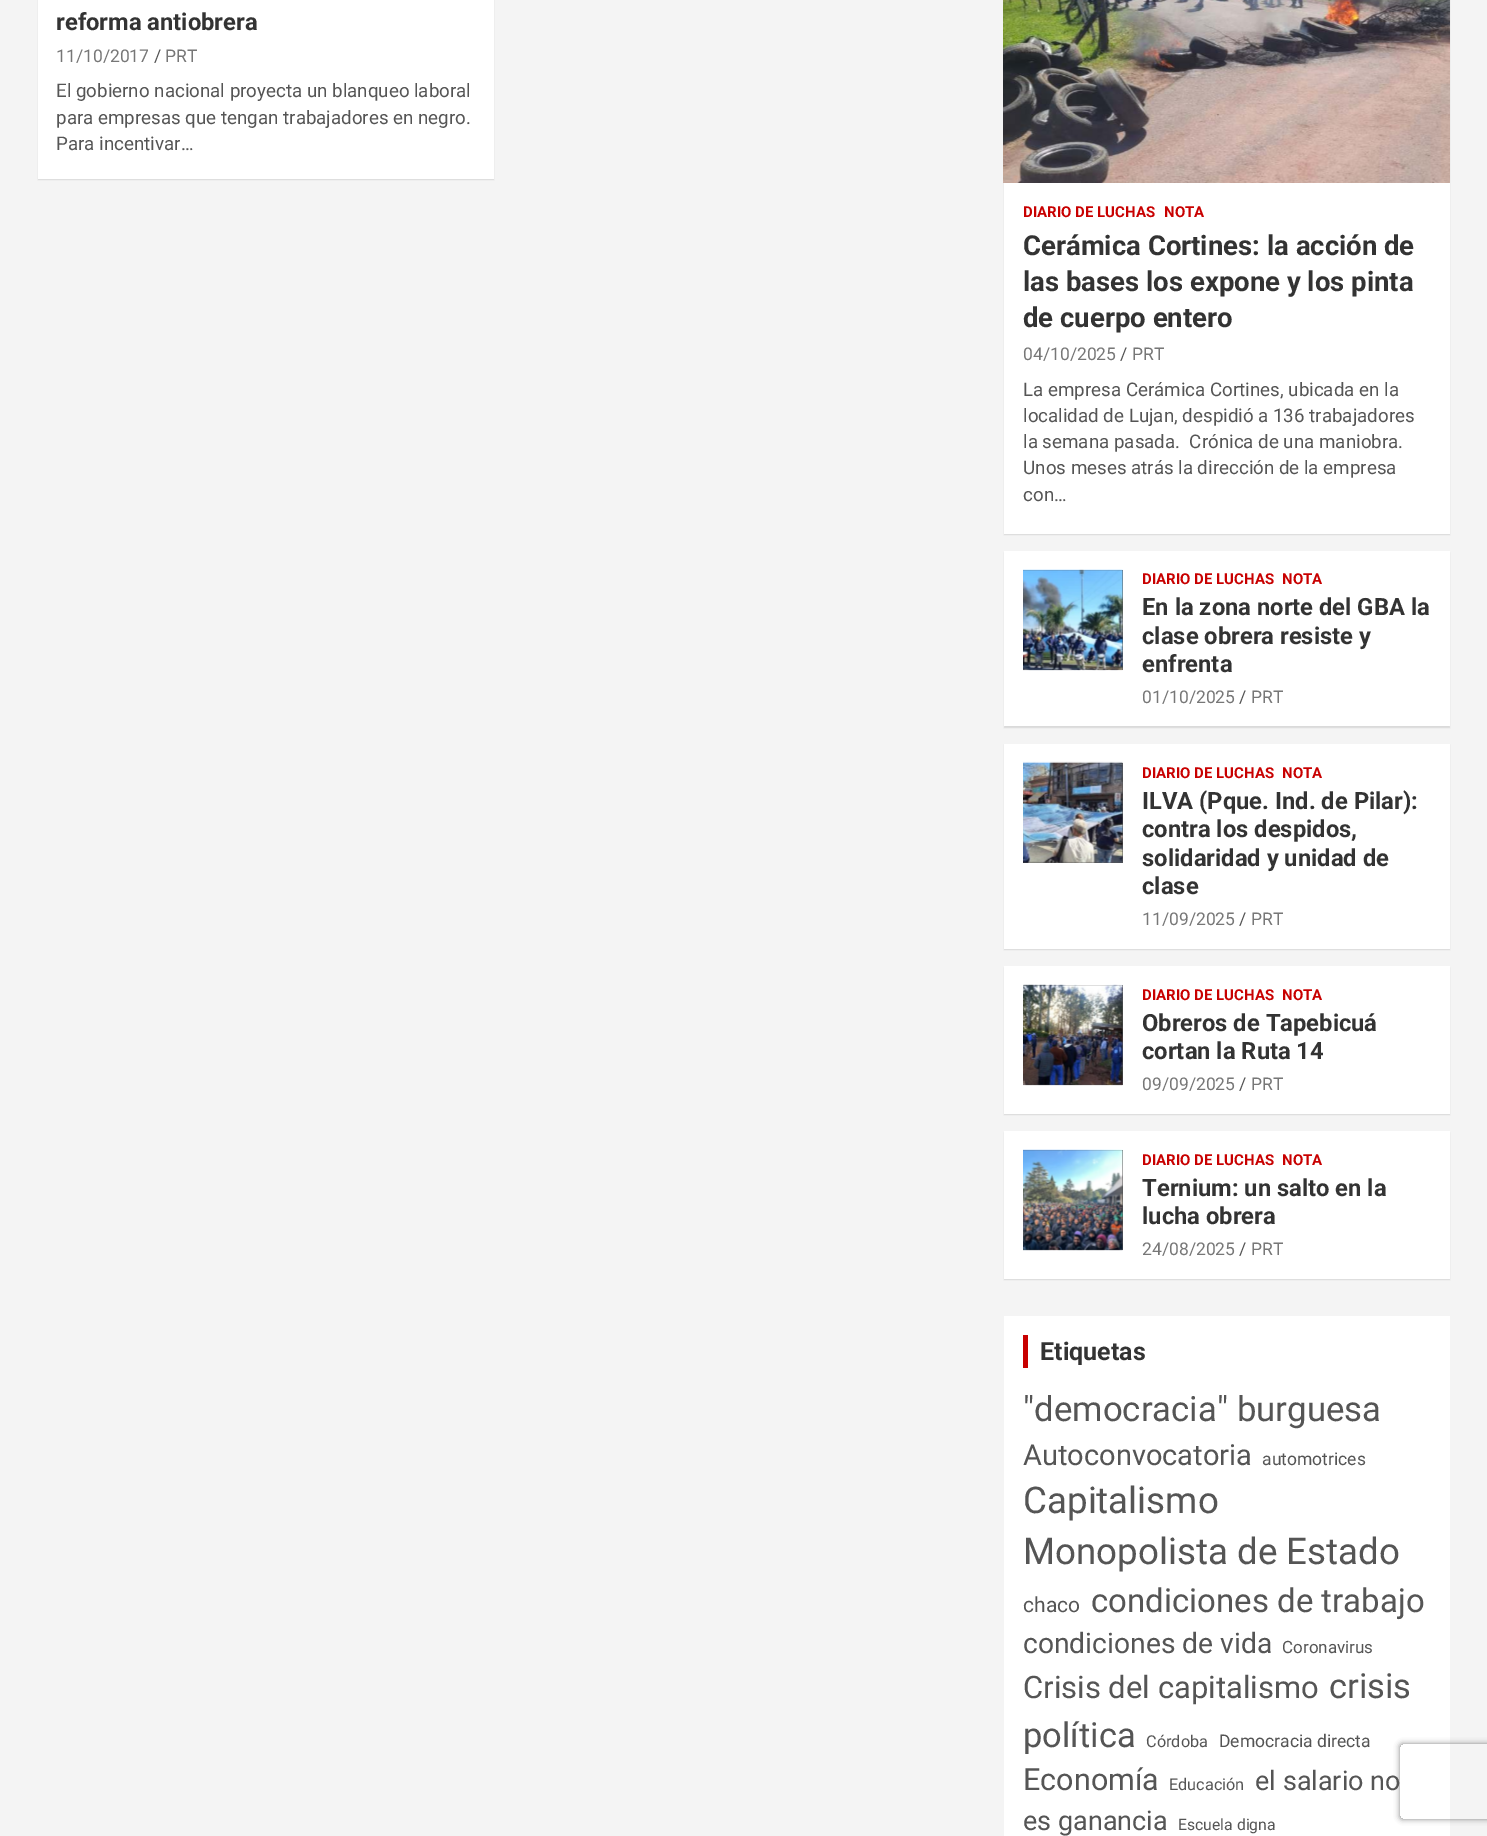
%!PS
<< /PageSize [1487 1836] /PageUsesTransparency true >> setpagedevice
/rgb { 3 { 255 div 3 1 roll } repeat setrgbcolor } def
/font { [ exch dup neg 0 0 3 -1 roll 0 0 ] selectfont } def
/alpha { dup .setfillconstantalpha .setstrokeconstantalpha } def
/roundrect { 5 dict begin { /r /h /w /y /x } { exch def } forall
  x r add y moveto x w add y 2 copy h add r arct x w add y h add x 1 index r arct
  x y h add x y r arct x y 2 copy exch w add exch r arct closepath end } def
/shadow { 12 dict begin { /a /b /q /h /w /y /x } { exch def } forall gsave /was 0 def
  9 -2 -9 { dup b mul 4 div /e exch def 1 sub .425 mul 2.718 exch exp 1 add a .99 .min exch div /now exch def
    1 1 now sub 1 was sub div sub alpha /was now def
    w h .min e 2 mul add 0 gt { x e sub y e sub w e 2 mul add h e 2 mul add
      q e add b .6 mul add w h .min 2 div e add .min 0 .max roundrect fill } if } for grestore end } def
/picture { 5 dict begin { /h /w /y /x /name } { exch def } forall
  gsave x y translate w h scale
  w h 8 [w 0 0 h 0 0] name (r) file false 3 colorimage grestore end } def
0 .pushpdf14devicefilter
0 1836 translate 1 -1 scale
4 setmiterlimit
244 244 244 rgb
0 0 1487 1836 rectfill
0 0 0 rgb
38 -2 456 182 0 0.5 0.1 shadow
255 255 255 rgb
38 0 456 179 rectfill
0 0 0 rgb
1004 -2 446 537 0 0.5 0.1 shadow
255 255 255 rgb
1004 183 446 351 rectfill
(img/1.rgb) 1003 0 447 183 picture
0 0 0 rgb
1004 553 446 175 0 0.5 0.1 shadow
255 255 255 rgb
1004 551 446 175 rectfill
85 85 85 rgb
1023 570 100 100 rectfill
(img/2.rgb) 1023 569 100 102 picture
0 0 0 rgb
1004 745 446 205 0 0.5 0.1 shadow
255 255 255 rgb
1004 744 446 205 rectfill
85 85 85 rgb
1023 763 100 100 rectfill
(img/3.rgb) 1023 761 100 102 picture
0 0 0 rgb
1004 968 446 147 0 0.5 0.1 shadow
255 255 255 rgb
1004 966 446 148 rectfill
85 85 85 rgb
1023 985 100 100 rectfill
(img/4.rgb) 1023 984 100 102 picture
0 0 0 rgb
1004 1133 446 147 0 0.5 0.1 shadow
255 255 255 rgb
1004 1131 446 148 rectfill
85 85 85 rgb
1023 1150 100 100 rectfill
(img/5.rgb) 1023 1149 100 102 picture
255 255 255 rgb
1004 1316 446 520 rectfill
200 0 0 rgb
1023 1335 5 33 rectfill
gsave
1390 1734 moveto 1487 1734 lineto 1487 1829 lineto 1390 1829 lineto closepath 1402.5 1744 moveto 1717.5 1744 lineto 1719 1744 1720 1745 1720 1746.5 curveto 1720 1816.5 lineto 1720 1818 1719 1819 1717.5 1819 curveto 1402.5 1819 lineto 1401 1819 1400 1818 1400 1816.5 curveto 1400 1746.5 lineto 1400 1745 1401 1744 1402.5 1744 curveto closepath eoclip newpath
128 128 128 rgb
1400 1744 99 75 2.5 3 1 shadow
grestore
/Roboto-Bold 23.75 font
51 51 51 rgb
56 30 moveto (reforma antiobrera) show
/Roboto-Regular 17.5 font
119 119 119 rgb
56 62 moveto (11/10/2017) show
85 85 85 rgb
154 62 moveto (/) show
119 119 119 rgb
165 62 moveto (PRT) show
/Roboto-Regular 18.75 font
85 85 85 rgb
[
  [(El gobierno nacional proyecta un blanqueo laboral) 56 97]
  [(para empresas que tengan trabajadores en negro.) 56 124]
  [(Para incentivar…) 56 150]
] { aload pop moveto show } forall
/Roboto-Bold 15 font
200 0 0 rgb
1023 217 moveto (DIARIO DE LUCHAS) show
1164 217 moveto (NOTA) show
/Roboto-Bold 27.5 font
51 51 51 rgb
[
  [(Cerámica Cortines: la acción de) 1023 255]
  [(las bases los expone y los pinta) 1023 291]
  [(de cuerpo entero) 1023 327]
] { aload pop moveto show } forall
/Roboto-Regular 17.5 font
119 119 119 rgb
1023 360 moveto (04/10/2025) show
85 85 85 rgb
1120 360 moveto (/) show
119 119 119 rgb
1132 360 moveto (PRT) show
/Roboto-Regular 18.75 font
85 85 85 rgb
[
  [(La empresa Cerámica Cortines, ubicada en la) 1023 396]
  [(localidad de Lujan, despidió a 136 trabajadores) 1023 422]
  [(la semana pasada.  Crónica de una maniobra.) 1023 448]
  [(Unos meses atrás la dirección de la empresa) 1023 474]
  [(con…) 1023 501]
] { aload pop moveto show } forall
/Roboto-Bold 15 font
200 0 0 rgb
1142 584 moveto (DIARIO DE LUCHAS) show
1282 584 moveto (NOTA) show
/Roboto-Bold 23.75 font
51 51 51 rgb
[
  [(En la zona norte del GBA la) 1142 615]
  [(clase obrera resiste y) 1142 644]
  [(enfrenta) 1142 672]
] { aload pop moveto show } forall
/Roboto-Regular 17.5 font
119 119 119 rgb
1142 703 moveto (01/10/2025) show
85 85 85 rgb
1239 703 moveto (/) show
119 119 119 rgb
1251 703 moveto (PRT) show
/Roboto-Bold 15 font
200 0 0 rgb
1142 778 moveto (DIARIO DE LUCHAS) show
1282 778 moveto (NOTA) show
/Roboto-Bold 23.75 font
51 51 51 rgb
[
  [(ILVA \(Pque. Ind. de Pilar\):) 1142 809]
  [(contra los despidos,) 1142 837]
  [(solidaridad y unidad de) 1142 866]
  [(clase) 1142 894]
] { aload pop moveto show } forall
/Roboto-Regular 17.5 font
119 119 119 rgb
1142 925 moveto (11/09/2025) show
85 85 85 rgb
1239 925 moveto (/) show
119 119 119 rgb
1251 925 moveto (PRT) show
/Roboto-Bold 15 font
200 0 0 rgb
1142 1000 moveto (DIARIO DE LUCHAS) show
1282 1000 moveto (NOTA) show
/Roboto-Bold 23.75 font
51 51 51 rgb
1142 1031 moveto (Obreros de Tapebicuá) show
1142 1059 moveto (cortan la Ruta 14) show
/Roboto-Regular 17.5 font
119 119 119 rgb
1142 1090 moveto (09/09/2025) show
85 85 85 rgb
1239 1090 moveto (/) show
119 119 119 rgb
1251 1090 moveto (PRT) show
/Roboto-Bold 15 font
200 0 0 rgb
1142 1165 moveto (DIARIO DE LUCHAS) show
1282 1165 moveto (NOTA) show
/Roboto-Bold 23.75 font
51 51 51 rgb
1142 1196 moveto (Ternium: un salto en la) show
1142 1224 moveto (lucha obrera) show
/Roboto-Regular 17.5 font
119 119 119 rgb
1142 1255 moveto (24/08/2025) show
85 85 85 rgb
1239 1255 moveto (/) show
119 119 119 rgb
1251 1255 moveto (PRT) show
/Roboto-Bold 25 font
51 51 51 rgb
1040 1360 moveto (Etiquetas) show
/Roboto-Regular 34.75 font
85 85 85 rgb
1023 1421 moveto ("democracia" burguesa) show
/Roboto-Regular 29 font
1023 1465 moveto (Autoconvocatoria) show
/Roboto-Regular 17.5 font
1262 1465 moveto (automotrices) show
/Roboto-Regular 36.75 font
1023 1513 moveto (Capitalismo) show
1023 1564 moveto (Monopolista de Estado) show
/Roboto-Regular 21 font
1023 1612 moveto (chaco) show
/Roboto-Regular 33 font
1091 1612 moveto (condiciones de trabajo) show
/Roboto-Regular 28.25 font
1023 1653 moveto (condiciones de vida) show
/Roboto-Regular 17 font
1282 1653 moveto (Coronavirus) show
/Roboto-Regular 31 font
1023 1698 moveto (Crisis del capitalismo) show
/Roboto-Regular 34.5 font
1329 1698 moveto (crisis) show
1023 1747 moveto (política) show
/Roboto-Regular 16.25 font
1146 1747 moveto (Córdoba) show
/Roboto-Regular 17.5 font
1219 1747 moveto (Democracia directa) show
/Roboto-Regular 30.5 font
1023 1790 moveto (Economía) show
/Roboto-Regular 16.25 font
1169 1790 moveto (Educación) show
/Roboto-Regular 27 font
1255 1790 moveto (el salario no) show
1023 1830 moveto (es ganancia) show
/Roboto-Regular 15.75 font
1178 1830 moveto (Escuela digna) show
.poppdf14devicefilter showpage
